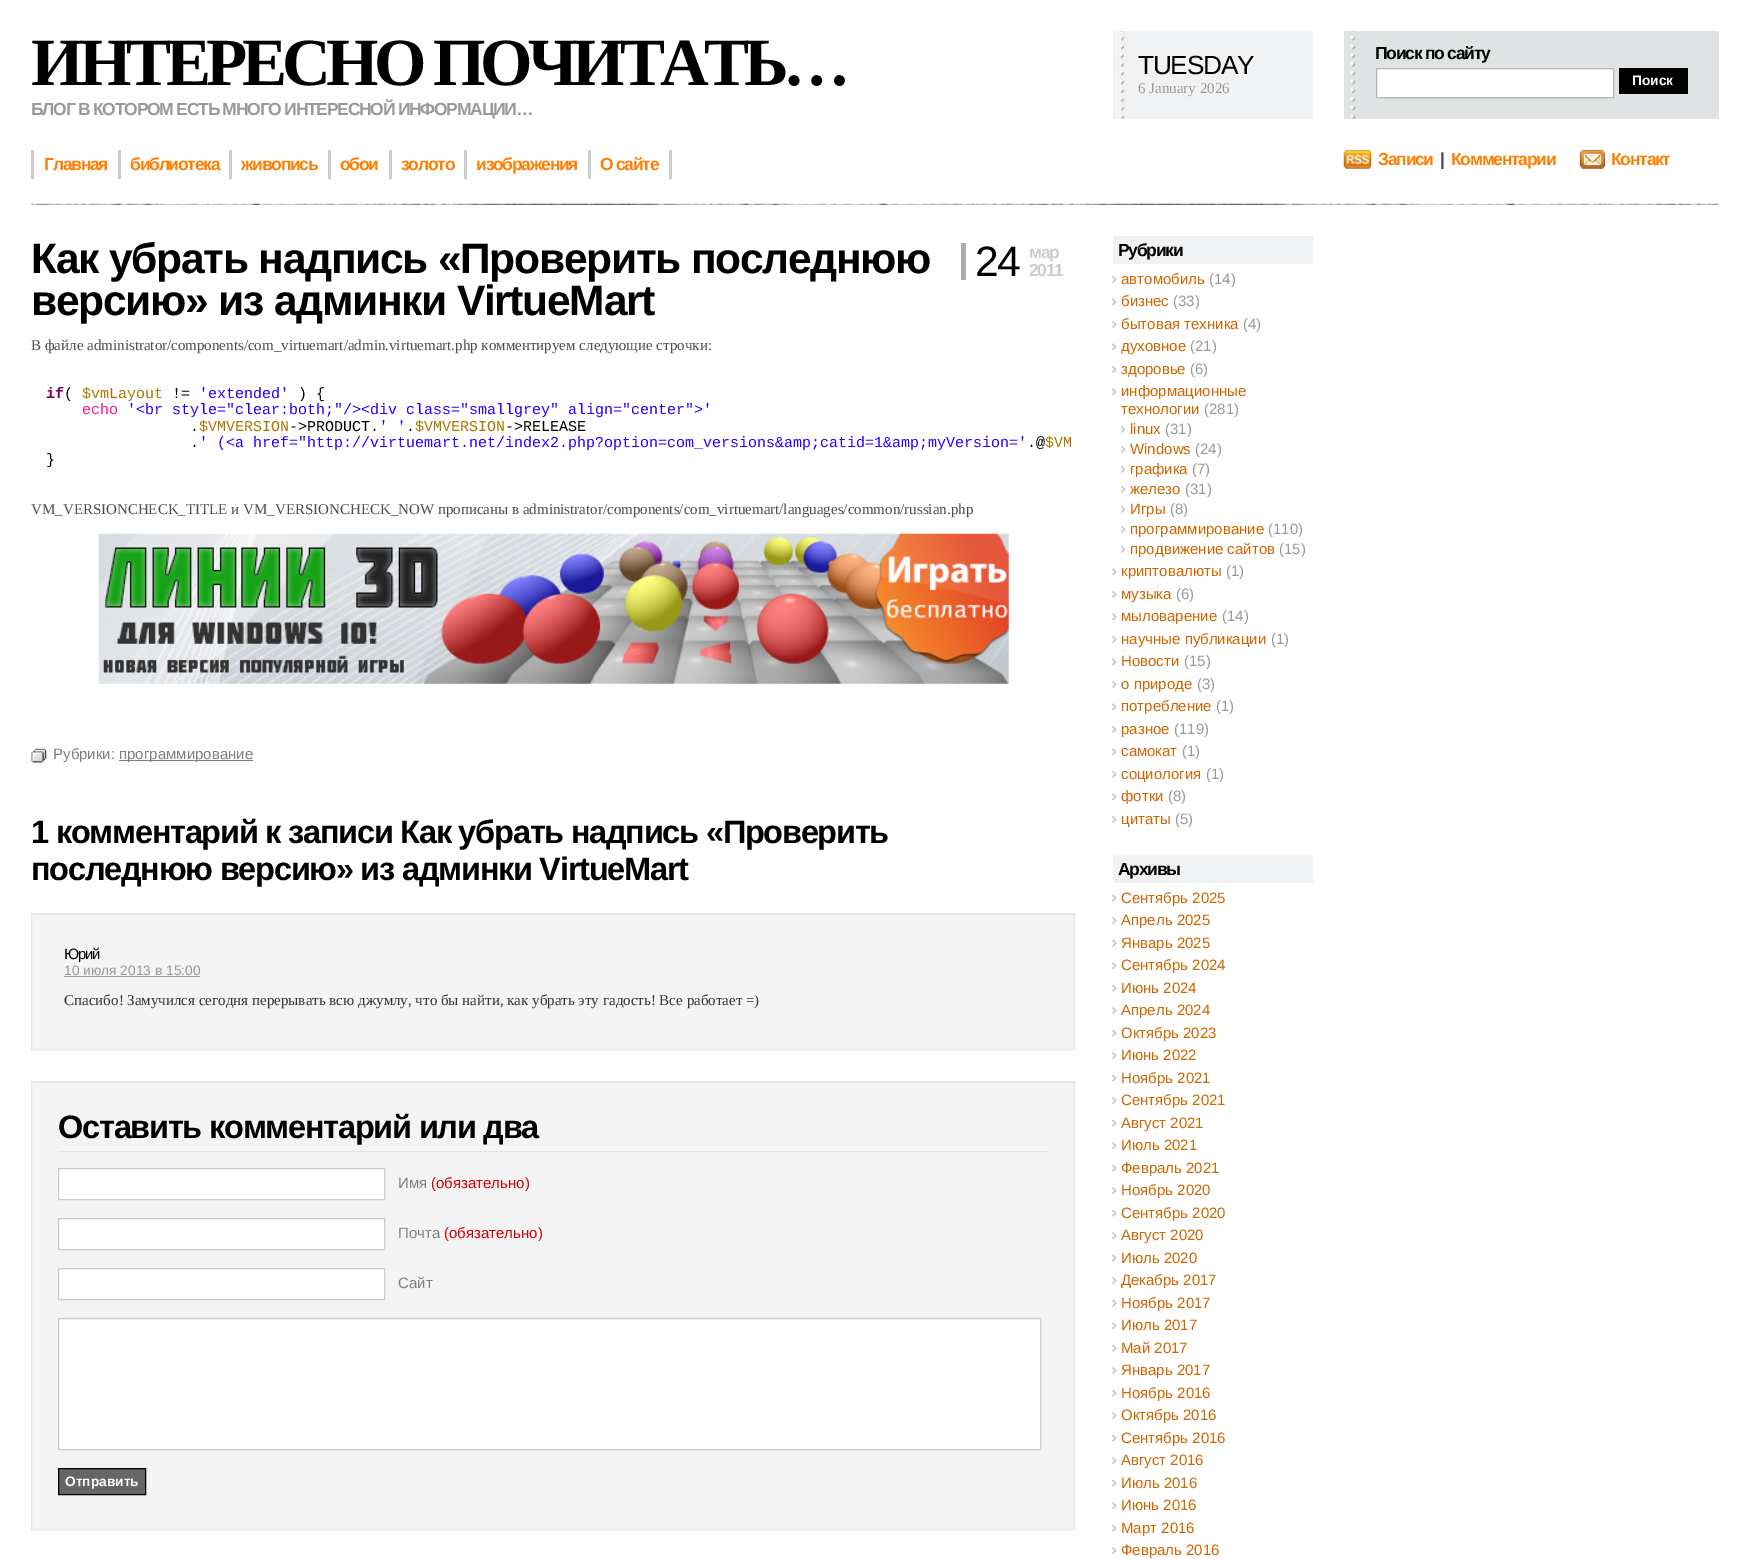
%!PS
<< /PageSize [1750 1559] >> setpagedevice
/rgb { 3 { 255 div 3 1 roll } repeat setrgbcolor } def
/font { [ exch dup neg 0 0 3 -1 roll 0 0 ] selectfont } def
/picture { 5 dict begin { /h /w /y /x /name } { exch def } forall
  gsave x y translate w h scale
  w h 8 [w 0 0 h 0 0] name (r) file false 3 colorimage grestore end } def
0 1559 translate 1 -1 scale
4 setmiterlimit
255 255 255 rgb
0 0 1750 1559 rectfill
240 242 243 rgb
1113 31 200 88 rectfill
(img/1.rgb) 1118 31 6 88 picture
224 227 228 rgb
1344 31 375 88 rectfill
(img/2.rgb) 1350 31 6 88 picture
255 255 255 rgb
1376.5 68.5 moveto 1613.5 68.5 lineto 1613.5 97.5 lineto 1376.5 97.5 lineto closepath gsave fill grestore
179 182 183 rgb
stroke
[
  [1619 68 69 26 0 0 0]
  [31 150 3 29 204 204 204]
  [118 150 3 29 204 204 204]
  [229 150 3 29 204 204 204]
  [328 150 3 29 204 204 204]
  [389 150 3 29 204 204 204]
  [464 150 3 29 204 204 204]
  [588 150 3 29 204 204 204]
  [669 150 3 29 204 204 204]
] { aload pop rgb rectfill } forall
(img/3.rgb) 1343 150 29 19 picture
(img/4.rgb) 1580 150 25 19 picture
(img/5.rgb) 31 203 1688 2 picture
173 173 173 rgb
961 243 5 37 rectfill
(img/6.rgb) 98 533 911 151 picture
(img/7.rgb) 31 748 16 15 picture
127 127 127 rgb
119 760 134 1 rectfill
244 244 244 rgb
31.5 913.5 moveto 1074.5 913.5 lineto 1074.5 1049.5 lineto 31.5 1049.5 lineto closepath gsave fill grestore
229 229 229 rgb
stroke
153 153 153 rgb
64 976 136 1 rectfill
244 244 244 rgb
31.5 1081.5 moveto 1074.5 1081.5 lineto 1074.5 1529.5 lineto 31.5 1529.5 lineto closepath gsave fill grestore
229 229 229 rgb
stroke
58 1151 991 1 rectfill
255 255 255 rgb
58.5 1168.5 moveto 384.5 1168.5 lineto 384.5 1199.5 lineto 58.5 1199.5 lineto closepath gsave fill grestore
204 204 204 rgb
stroke
255 255 255 rgb
58.5 1218.5 moveto 384.5 1218.5 lineto 384.5 1249.5 lineto 58.5 1249.5 lineto closepath gsave fill grestore
204 204 204 rgb
stroke
255 255 255 rgb
58.5 1268.5 moveto 384.5 1268.5 lineto 384.5 1299.5 lineto 58.5 1299.5 lineto closepath gsave fill grestore
204 204 204 rgb
stroke
255 255 255 rgb
58.5 1318.5 moveto 1040.5 1318.5 lineto 1040.5 1449.5 lineto 58.5 1449.5 lineto closepath gsave fill grestore
204 204 204 rgb
stroke
102 102 102 rgb
58.5 1468.5 moveto 145.5 1468.5 lineto 145.5 1494.5 lineto 58.5 1494.5 lineto closepath gsave fill grestore
0 0 0 rgb
stroke
240 242 243 rgb
1113 236 200 28 rectfill
(img/8.rgb) 1112 276 5 7 picture
(img/9.rgb) 1112 298 5 7 picture
(img/8.rgb) 1112 321 5 7 picture
(img/9.rgb) 1112 343 5 7 picture
(img/8.rgb) 1112 366 5 7 picture
(img/9.rgb) 1112 388 5 7 picture
(img/10.rgb) 1121 426 4 7 picture
(img/10.rgb) 1121 446 4 7 picture
(img/10.rgb) 1121 466 4 7 picture
(img/10.rgb) 1121 486 4 7 picture
(img/10.rgb) 1121 506 4 7 picture
(img/10.rgb) 1121 526 4 7 picture
(img/10.rgb) 1121 546 4 7 picture
(img/9.rgb) 1112 568 5 7 picture
(img/8.rgb) 1112 591 5 7 picture
(img/9.rgb) 1112 613 5 7 picture
(img/8.rgb) 1112 636 5 7 picture
(img/9.rgb) 1112 658 5 7 picture
(img/8.rgb) 1112 681 5 7 picture
(img/9.rgb) 1112 703 5 7 picture
(img/8.rgb) 1112 726 5 7 picture
(img/9.rgb) 1112 748 5 7 picture
(img/8.rgb) 1112 771 5 7 picture
(img/9.rgb) 1112 793 5 7 picture
(img/8.rgb) 1112 816 5 7 picture
1113 855 200 28 rectfill
(img/11.rgb) 1112 895 5 7 picture
(img/12.rgb) 1112 917 5 7 picture
(img/11.rgb) 1112 940 5 7 picture
(img/12.rgb) 1112 962 5 7 picture
(img/11.rgb) 1112 985 5 7 picture
(img/12.rgb) 1112 1007 5 7 picture
(img/11.rgb) 1112 1030 5 7 picture
(img/12.rgb) 1112 1052 5 7 picture
(img/11.rgb) 1112 1075 5 7 picture
(img/12.rgb) 1112 1097 5 7 picture
(img/11.rgb) 1112 1120 5 7 picture
(img/12.rgb) 1112 1142 5 7 picture
(img/11.rgb) 1112 1165 5 7 picture
(img/12.rgb) 1112 1187 5 7 picture
(img/11.rgb) 1112 1210 5 7 picture
(img/12.rgb) 1112 1232 5 7 picture
(img/11.rgb) 1112 1255 5 7 picture
(img/12.rgb) 1112 1277 5 7 picture
(img/11.rgb) 1112 1300 5 7 picture
(img/12.rgb) 1112 1322 5 7 picture
(img/11.rgb) 1112 1345 5 7 picture
(img/12.rgb) 1112 1367 5 7 picture
(img/11.rgb) 1112 1390 5 7 picture
(img/12.rgb) 1112 1412 5 7 picture
(img/11.rgb) 1112 1435 5 7 picture
(img/12.rgb) 1112 1457 5 7 picture
(img/11.rgb) 1112 1480 5 7 picture
(img/12.rgb) 1112 1502 5 7 picture
(img/11.rgb) 1112 1525 5 7 picture
(img/12.rgb) 1112 1547 5 7 picture
/LiberationSerif-Bold 67.5 font
0 0 0 rgb
31 85 moveto -5 0 (ИНТЕРЕСНО ПОЧИТАТЬ…) ashow
/LiberationSans-Bold 17.5 font
153 153 153 rgb
31 115 moveto -1.25 0 (БЛОГ В КОТОРОМ ЕСТЬ МНОГО ИНТЕРЕСНОЙ ИНФОРМАЦИИ…) ashow
/LiberationSans-Regular 26.25 font
0 0 0 rgb
1138 74 moveto -1.25 0 (TUESDAY) ashow
/LiberationSerif-Regular 15 font
153 153 153 rgb
1138 93 moveto (6 January 2026) show
/LiberationSans-Bold 17.5 font
0 0 0 rgb
1375 59 moveto -1.25 0 (Поиск по сайту) ashow
/LiberationSans-Bold 13.75 font
255 255 255 rgb
1632 85 moveto (Поиск) show
/LiberationSans-Bold 17.5 font
255 126 0 rgb
44 170 moveto -1.25 0 (Главная) ashow
130 170 moveto -1.25 0 (библиотека) ashow
241 170 moveto -1.25 0 (живопись) ashow
340 170 moveto -1.25 0 (обои) ashow
401 170 moveto -1.25 0 (золото) ashow
476 170 moveto -1.25 0 (изображения) ashow
600 170 moveto -1.25 0 (О сайте) ashow
1378 165 moveto -1.25 0 (Записи) ashow
76 76 76 rgb
1440 165 moveto -1.25 0 (|) ashow
255 126 0 rgb
1451 165 moveto -1.25 0 (Комментарии) ashow
1611 165 moveto -1.25 0 (Контакт) ashow
/LiberationSans-Bold 42.5 font
0 0 0 rgb
31 273 moveto -1.25 0 (Как убрать надпись «Проверить последнюю) ashow
31 315 moveto -1.25 0 (версию» из админки VirtueMart) ashow
/LiberationSans-Regular 42.5 font
975 276 moveto -1.25 0 (24) ashow
/LiberationSans-Bold 17.5 font
204 204 204 rgb
1029 258 moveto -1.25 0 (мар) ashow
1029 276 moveto -1.25 0 (2011) ashow
/LiberationSerif-Regular 15 font
76 76 76 rgb
31 350 moveto (В файле administrator/components/com_virtuemart/admin.virtuemart.php комментируем следующие строчки:) show
/LiberationMono-Bold 15 font
127 0 85 rgb
46 398 moveto (if) show
/LiberationMono-Regular 15 font
0 0 0 rgb
64 398 moveto (\() show
170 119 0 rgb
82 398 moveto ($vmLayout) show
0 0 0 rgb
172 398 moveto (!=) show
42 0 255 rgb
199 398 moveto ('extended') show
0 0 0 rgb
298 398 moveto (\) {) show
255 20 147 rgb
82 414 moveto (echo) show
42 0 255 rgb
127 414 moveto ('<br style="clear:both;"/><div class="smallgrey" align="center">') show
0 0 0 rgb
190 431 moveto (.) show
170 119 0 rgb
199 431 moveto ($VMVERSION) show
0 0 0 rgb
289 431 moveto (->PRODUCT.) show
42 0 255 rgb
379 431 moveto (' ') show
0 0 0 rgb
406 431 moveto (.) show
170 119 0 rgb
415 431 moveto ($VMVERSION) show
0 0 0 rgb
505 431 moveto (->RELEASE) show
190 447 moveto (.) show
42 0 255 rgb
199 447 moveto (' \(<a href="http://virtuemart.net/index2.php?option=com_versions&amp;catid=1&amp;myVersion=') show
0 0 0 rgb
1027 447 moveto (.@) show
170 119 0 rgb
1045 447 moveto ($VM) show
0 0 0 rgb
46 464 moveto (}) show
/LiberationSerif-Regular 15 font
76 76 76 rgb
31 514 moveto (VM_VERSIONCHECK_TITLE и VM_VERSIONCHECK_NOW прописаны в administrator/components/com_virtuemart/languages/common/russian.php) show
/LiberationSans-Regular 15 font
127 127 127 rgb
53 759 moveto (Рубрики:) show
119 759 moveto (программирование) show
/LiberationSans-Bold 32.5 font
0 0 0 rgb
31 843 moveto -1.25 0 (1 комментарий к записи Как убрать надпись «Проверить) ashow
31 880 moveto -1.25 0 (последнюю версию» из админки VirtueMart) ashow
/LiberationSans-Regular 15 font
64 959 moveto -1.25 0 (Юрий) ashow
/LiberationSans-Regular 13.75 font
153 153 153 rgb
64 975 moveto (10 июля 2013 в 15:00) show
/LiberationSerif-Regular 15 font
51 51 51 rgb
64 1005 moveto (Спасибо! Замучилcя сегодня перерывать всю джумлу, что бы найти, как убрать эту гадость! Все работает =\)) show
/LiberationSans-Bold 32.5 font
0 0 0 rgb
58 1138 moveto -1.25 0 (Оставить комментарий или два) ashow
/LiberationSans-Regular 15 font
127 127 127 rgb
398 1188 moveto (Имя) show
204 0 0 rgb
431 1188 moveto (\(обязательно\)) show
127 127 127 rgb
398 1238 moveto (Почта) show
204 0 0 rgb
444 1238 moveto (\(обязательно\)) show
127 127 127 rgb
398 1288 moveto (Сайт) show
/LiberationSans-Bold 13.75 font
255 255 255 rgb
65 1486 moveto (Отправить) show
/LiberationSans-Bold 17.5 font
0 0 0 rgb
1118 256 moveto -1.25 0 (Рубрики) ashow
/LiberationSans-Regular 15 font
204 102 0 rgb
1121 284 moveto (автомобиль) show
153 153 153 rgb
1209 284 moveto (\(14\)) show
204 102 0 rgb
1121 306 moveto (бизнес) show
153 153 153 rgb
1173 306 moveto (\(33\)) show
204 102 0 rgb
1121 329 moveto (бытовая техника) show
153 153 153 rgb
1243 329 moveto (\(4\)) show
204 102 0 rgb
1121 351 moveto (духовное) show
153 153 153 rgb
1190 351 moveto (\(21\)) show
204 102 0 rgb
1121 374 moveto (здоровье) show
153 153 153 rgb
1190 374 moveto (\(6\)) show
204 102 0 rgb
1121 396 moveto (информационные) show
1121 414 moveto (технологии) show
153 153 153 rgb
1204 414 moveto (\(281\)) show
204 102 0 rgb
1130 434 moveto (linux) show
153 153 153 rgb
1165 434 moveto (\(31\)) show
204 102 0 rgb
1130 454 moveto (Windows) show
153 153 153 rgb
1195 454 moveto (\(24\)) show
204 102 0 rgb
1130 474 moveto (графика) show
153 153 153 rgb
1192 474 moveto (\(7\)) show
204 102 0 rgb
1130 494 moveto (железо) show
153 153 153 rgb
1185 494 moveto (\(31\)) show
204 102 0 rgb
1130 514 moveto (Игры) show
153 153 153 rgb
1170 514 moveto (\(8\)) show
204 102 0 rgb
1130 534 moveto (программирование) show
153 153 153 rgb
1268 534 moveto (\(110\)) show
204 102 0 rgb
1130 554 moveto (продвижение сайтов) show
153 153 153 rgb
1279 554 moveto (\(15\)) show
204 102 0 rgb
1121 576 moveto (криптовалюты) show
153 153 153 rgb
1226 576 moveto (\(1\)) show
204 102 0 rgb
1121 599 moveto (музыка) show
153 153 153 rgb
1176 599 moveto (\(6\)) show
204 102 0 rgb
1121 621 moveto (мыловарение) show
153 153 153 rgb
1222 621 moveto (\(14\)) show
204 102 0 rgb
1121 644 moveto (научные публикации) show
153 153 153 rgb
1271 644 moveto (\(1\)) show
204 102 0 rgb
1121 666 moveto (Новости) show
153 153 153 rgb
1184 666 moveto (\(15\)) show
204 102 0 rgb
1121 689 moveto (о природе) show
153 153 153 rgb
1197 689 moveto (\(3\)) show
204 102 0 rgb
1121 711 moveto (потребление) show
153 153 153 rgb
1216 711 moveto (\(1\)) show
204 102 0 rgb
1121 734 moveto (разное) show
153 153 153 rgb
1174 734 moveto (\(119\)) show
204 102 0 rgb
1121 756 moveto (самокат) show
153 153 153 rgb
1182 756 moveto (\(1\)) show
204 102 0 rgb
1121 779 moveto (социология) show
153 153 153 rgb
1206 779 moveto (\(1\)) show
204 102 0 rgb
1121 801 moveto (фотки) show
153 153 153 rgb
1168 801 moveto (\(8\)) show
204 102 0 rgb
1121 824 moveto (цитаты) show
153 153 153 rgb
1175 824 moveto (\(5\)) show
/LiberationSans-Bold 17.5 font
0 0 0 rgb
1118 875 moveto -1.25 0 (Архивы) ashow
/LiberationSans-Regular 15 font
204 102 0 rgb
[
  [(Сентябрь 2025) 1121 903]
  [(Апрель 2025) 1121 925]
  [(Январь 2025) 1121 948]
  [(Сентябрь 2024) 1121 970]
  [(Июнь 2024) 1121 993]
  [(Апрель 2024) 1121 1015]
  [(Октябрь 2023) 1121 1038]
  [(Июнь 2022) 1121 1060]
  [(Ноябрь 2021) 1121 1083]
  [(Сентябрь 2021) 1121 1105]
  [(Август 2021) 1121 1128]
  [(Июль 2021) 1121 1150]
  [(Февраль 2021) 1121 1173]
  [(Ноябрь 2020) 1121 1195]
  [(Сентябрь 2020) 1121 1218]
  [(Август 2020) 1121 1240]
  [(Июль 2020) 1121 1263]
  [(Декабрь 2017) 1121 1285]
  [(Ноябрь 2017) 1121 1308]
  [(Июль 2017) 1121 1330]
  [(Май 2017) 1121 1353]
  [(Январь 2017) 1121 1375]
  [(Ноябрь 2016) 1121 1398]
  [(Октябрь 2016) 1121 1420]
  [(Сентябрь 2016) 1121 1443]
  [(Август 2016) 1121 1465]
  [(Июль 2016) 1121 1488]
  [(Июнь 2016) 1121 1510]
  [(Март 2016) 1121 1533]
  [(Февраль 2016) 1121 1555]
] { aload pop moveto show } forall
showpage
